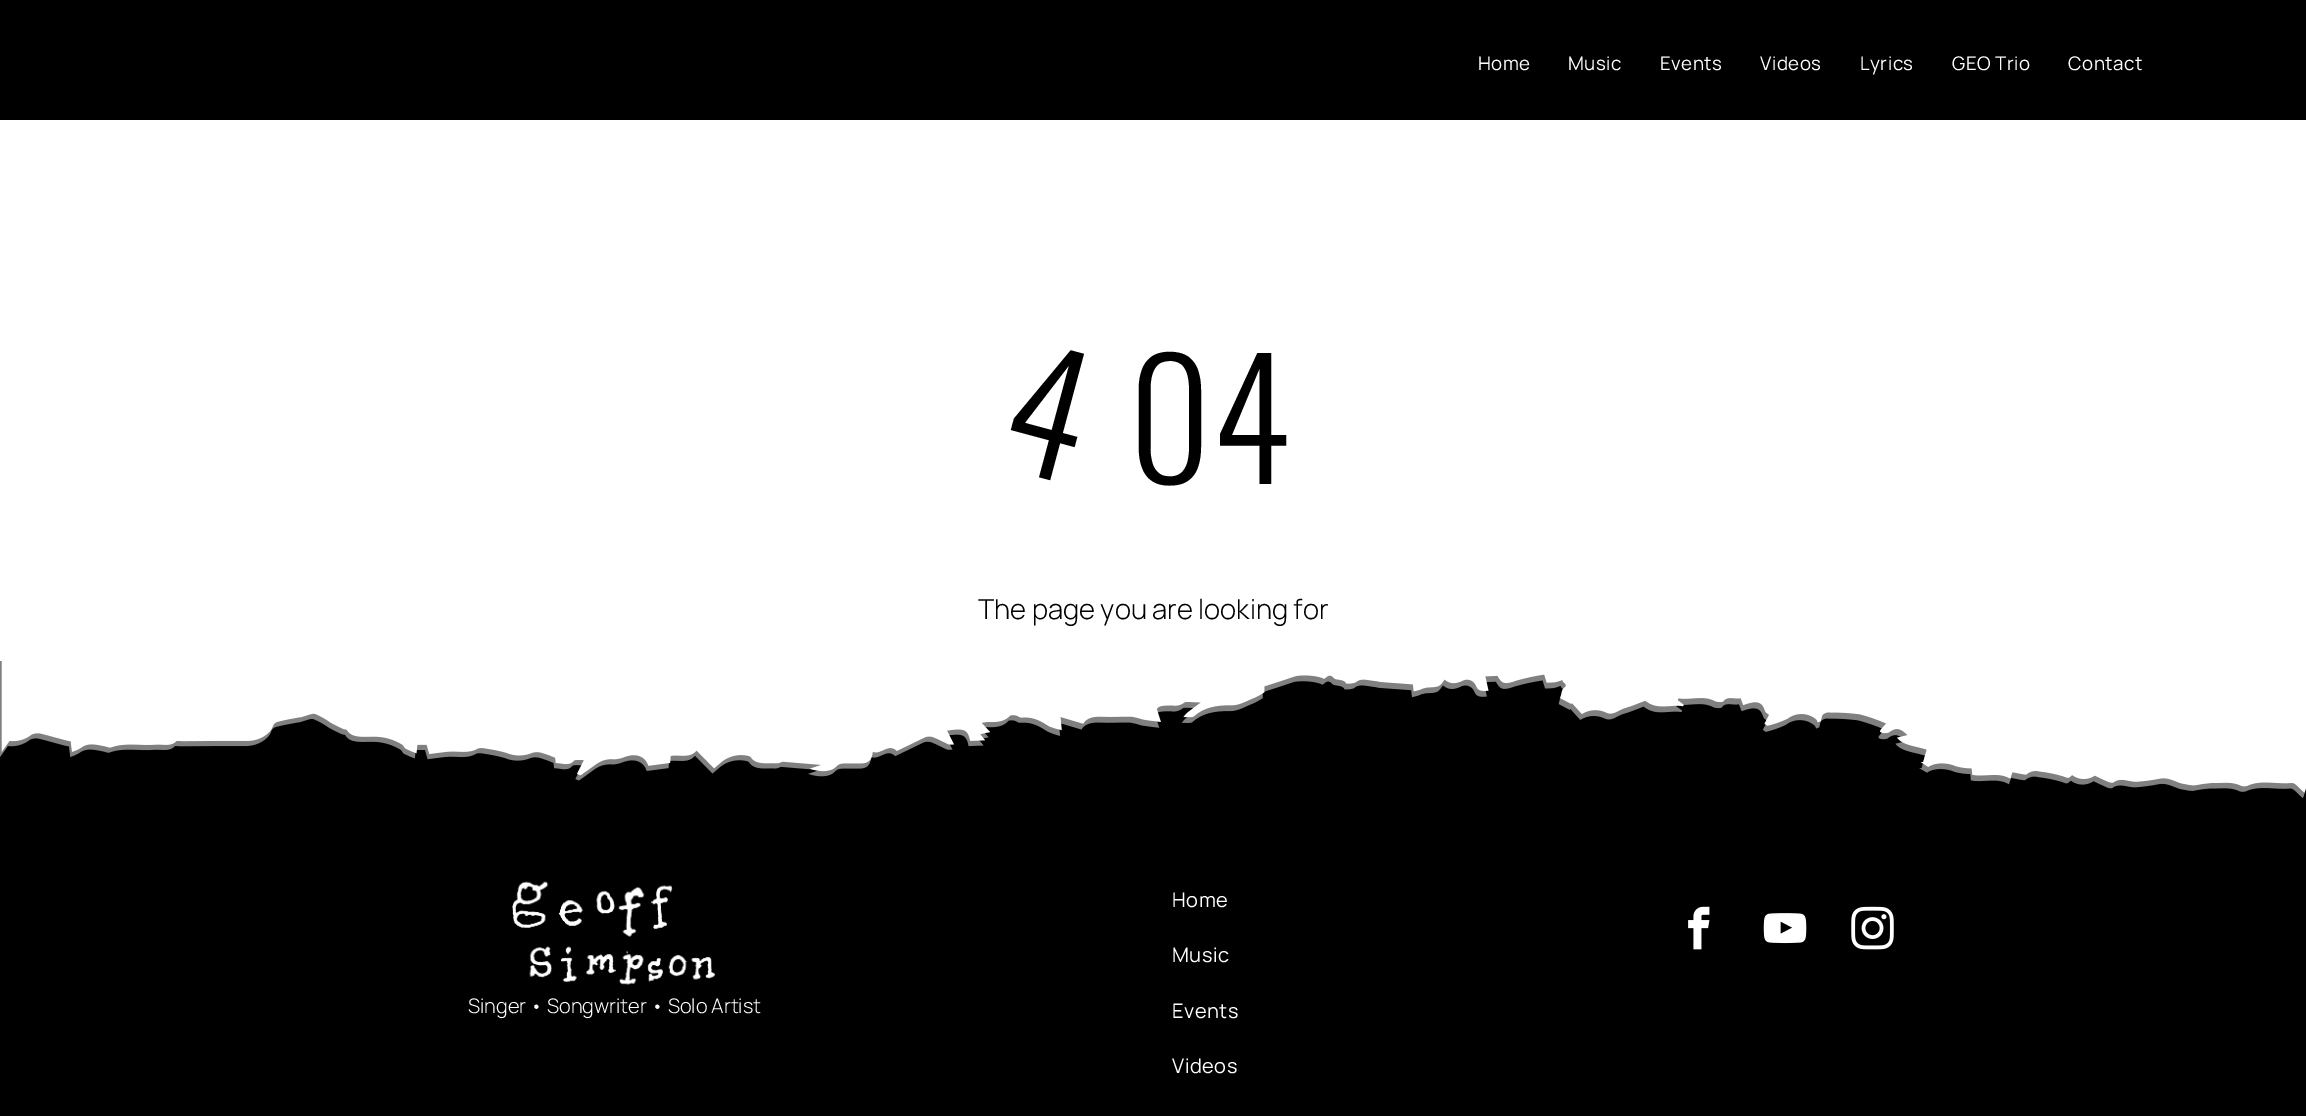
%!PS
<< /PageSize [2306 1116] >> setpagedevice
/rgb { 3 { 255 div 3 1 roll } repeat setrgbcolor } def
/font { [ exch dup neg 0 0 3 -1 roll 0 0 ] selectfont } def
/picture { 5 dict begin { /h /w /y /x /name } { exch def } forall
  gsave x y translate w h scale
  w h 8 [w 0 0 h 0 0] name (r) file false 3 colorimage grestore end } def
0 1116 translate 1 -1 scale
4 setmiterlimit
0 0 0 rgb
0 0 2306 1116 rectfill
255 255 255 rgb
0 120 2306 541 rectfill
(img/1.rgb) 0 643 2306 155 picture
(img/2.rgb) 1688 906 22 44 picture
(img/3.rgb) 1763 913 44 31 picture
(img/4.rgb) 1851 906 43 44 picture
(img/5.rgb) 512 881 204 104 picture
/Manrope-Regular 18.75 font
1478 70 moveto 0.5 0 (Home) ashow
1568 70 moveto 0.5 0 (Music) ashow
1660 70 moveto 0.5 0 (Events) ashow
1760 70 moveto 0.5 0 (Videos) ashow
1860 70 moveto 0.5 0 (Lyrics) ashow
1952 70 moveto 0.5 0 (GEO Trio) ashow
2068 70 moveto 0.5 0 (Contact) ashow
/Oswald-Light 162 font
0 0 0 rgb
gsave 993 465 translate 15 rotate 0 0 moveto (4) show grestore
1128 484 moveto (04) show
/Manrope-Light 27.5 font
978 619 moveto (The page you are looking for) show
/Manrope-Regular 20 font
255 255 255 rgb
1172 907 moveto 0.5 0 (Home) ashow
1172 962 moveto 0.5 0 (Music) ashow
1172 1018 moveto 0.5 0 (Events) ashow
1172 1073 moveto 0.5 0 (Videos) ashow
/Manrope-Light 20 font
468 1013 moveto (Singer • Songwriter • Solo Artist) show
showpage
